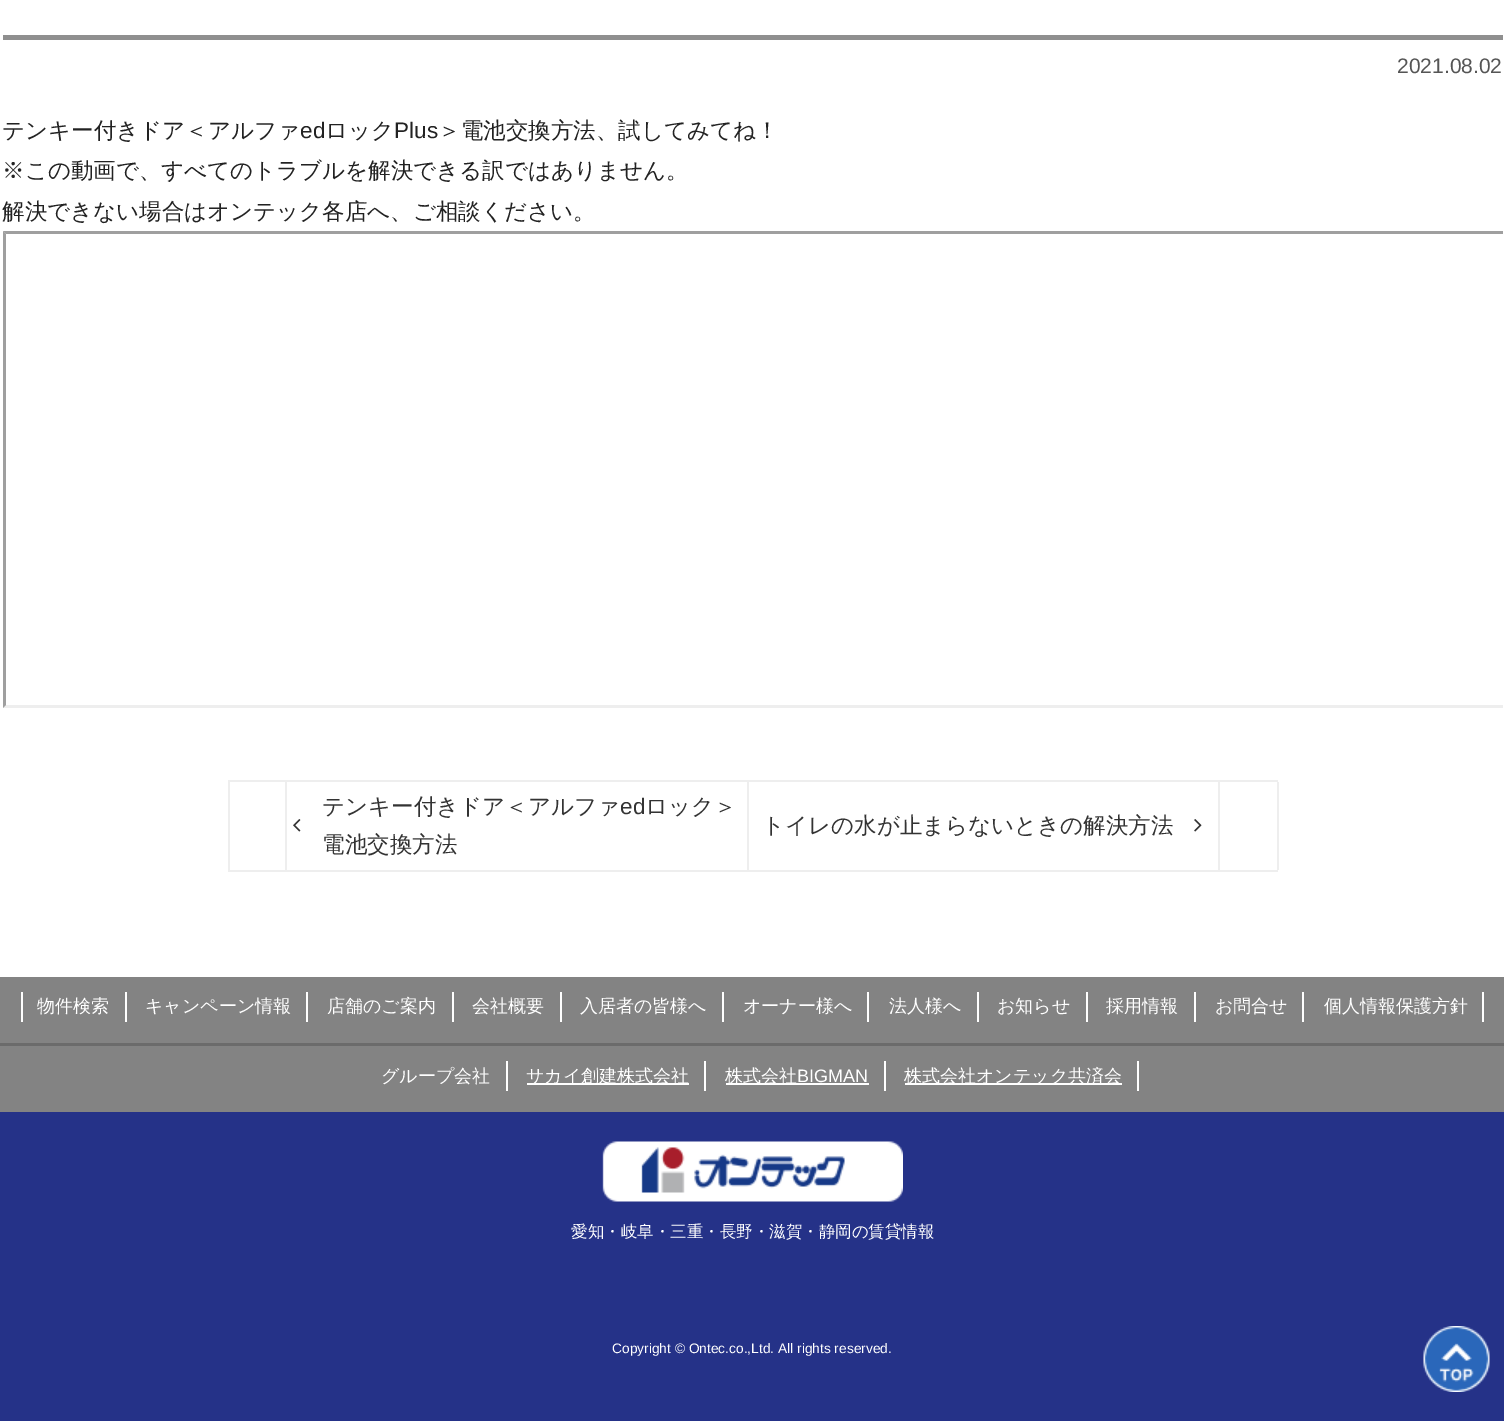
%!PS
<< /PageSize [1504 1421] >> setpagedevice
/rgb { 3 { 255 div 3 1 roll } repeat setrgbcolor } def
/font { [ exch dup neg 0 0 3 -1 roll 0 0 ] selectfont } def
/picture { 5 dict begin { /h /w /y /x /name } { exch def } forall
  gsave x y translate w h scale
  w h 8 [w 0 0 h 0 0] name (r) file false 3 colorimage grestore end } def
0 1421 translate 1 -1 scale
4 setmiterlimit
255 255 255 rgb
0 0 1504 1421 rectfill
143 143 143 rgb
3 35 1500 5 rectfill
gsave
3 110 1500 655 rectclip
159 159 159 rgb
3 231 moveto 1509 231 lineto 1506 234 lineto 6 234 lineto closepath fill
238 238 238 rgb
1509 708 moveto 3 708 lineto 6 705 lineto 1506 705 lineto closepath fill
grestore
159 159 159 rgb
3 708 moveto 3 231 lineto 6 234 lineto 6 705 lineto closepath fill
[
  [228 780 1050 2 238 238 238]
  [228 870 1050 2 238 238 238]
  [285 782 2 88 238 238 238]
  [228 782 2 88 238 238 238]
] { aload pop rgb rectfill } forall
(img/1.rgb) 293 819 8 13 picture
747 782 2 88 rectfill
(img/2.rgb) 1194 819 8 13 picture
[
  [1277 782 2 88 238 238 238]
  [1218 782 2 88 238 238 238]
  [0 1112 1504 309 37 50 136]
  [0 977 1504 135 131 131 131]
  [0 1043 1504 3 107 107 107]
  [125 992 2 30 255 255 255]
  [21 992 2 30 255 255 255]
  [306 992 2 30 255 255 255]
  [452 992 2 30 255 255 255]
  [560 992 2 30 255 255 255]
  [722 992 2 30 255 255 255]
  [867 992 2 30 255 255 255]
  [977 992 2 30 255 255 255]
  [1086 992 2 30 255 255 255]
  [1194 992 2 30 255 255 255]
  [1302 992 2 30 255 255 255]
  [1482 992 2 30 255 255 255]
  [506 1061 2 30 255 255 255]
  [704 1061 2 30 255 255 255]
  [527 1083 162 2 255 255 255]
  [884 1061 2 30 255 255 255]
  [726 1083 143 2 255 255 255]
  [1137 1061 2 30 255 255 255]
  [905 1083 217 2 255 255 255]
] { aload pop rgb rectfill } forall
(img/3.rgb) 602 1141 301 61 picture
(img/4.rgb) 1423 1326 67 66 picture
/LiberationSans-Regular 21 font
85 85 85 rgb
1397 73 moveto (2021.08.02) show
/WenQuanYiZenHei-Medium 22.5 font
34 34 34 rgb
2 138 moveto (テンキー付きドア＜アルファ) show
/LiberationSans-Regular 22.5 font
300 138 moveto (ed) show
/WenQuanYiZenHei-Medium 22.5 font
325 138 moveto (ロック) show
/LiberationSans-Regular 22.5 font
394 138 moveto (Plus) show
/WenQuanYiZenHei-Medium 22.5 font
[
  [(＞電池交換方法、試してみてね！) 438 138]
  [(※この動画で、すべてのトラブルを解決できる訳ではありません。) 2 178]
  [(解決できない場合はオンテック各店へ、ご相談ください。) 2 219]
] { aload pop moveto show } forall
51 51 51 rgb
322 814 moveto (テンキー付きドア＜アルファ) show
/LiberationSans-Regular 22.5 font
620 814 moveto (ed) show
/WenQuanYiZenHei-Medium 22.5 font
[
  [(ロック＞) 645 814]
  [(電池交換方法) 322 852]
  [(トイレの水が止まらないときの解決方法) 762 833]
] { aload pop moveto show } forall
/WenQuanYiZenHei-Medium 18 font
255 255 255 rgb
[
  [(物件検索) 37 1012]
  [(キャンペーン情報) 145 1012]
  [(店舗のご案内) 327 1012]
  [(会社概要) 472 1012]
  [(入居者の皆様へ) 580 1012]
  [(オーナー様へ) 743 1012]
  [(法人様へ) 889 1012]
  [(お知らせ) 997 1012]
  [(採用情報) 1106 1012]
  [(お問合せ) 1215 1012]
  [(個人情報保護方針) 1324 1012]
  [(グループ会社) 381 1082]
  [(サカイ創建株式会社) 526 1082]
  [(株式会社) 725 1082]
] { aload pop moveto show } forall
/LiberationSans-Regular 18 font
797 1082 moveto (BIGMAN) show
/WenQuanYiZenHei-Medium 18 font
904 1082 moveto (株式会社オンテック共済会) show
/WenQuanYiZenHei-Medium 16.5 font
571 1237 moveto (愛知・岐阜・三重・長野・滋賀・静岡の賃貸情報) show
/LiberationSans-Regular 13.75 font
612 1353 moveto (Copyright © Ontec.co.,Ltd. All rights reserved.) show
showpage
